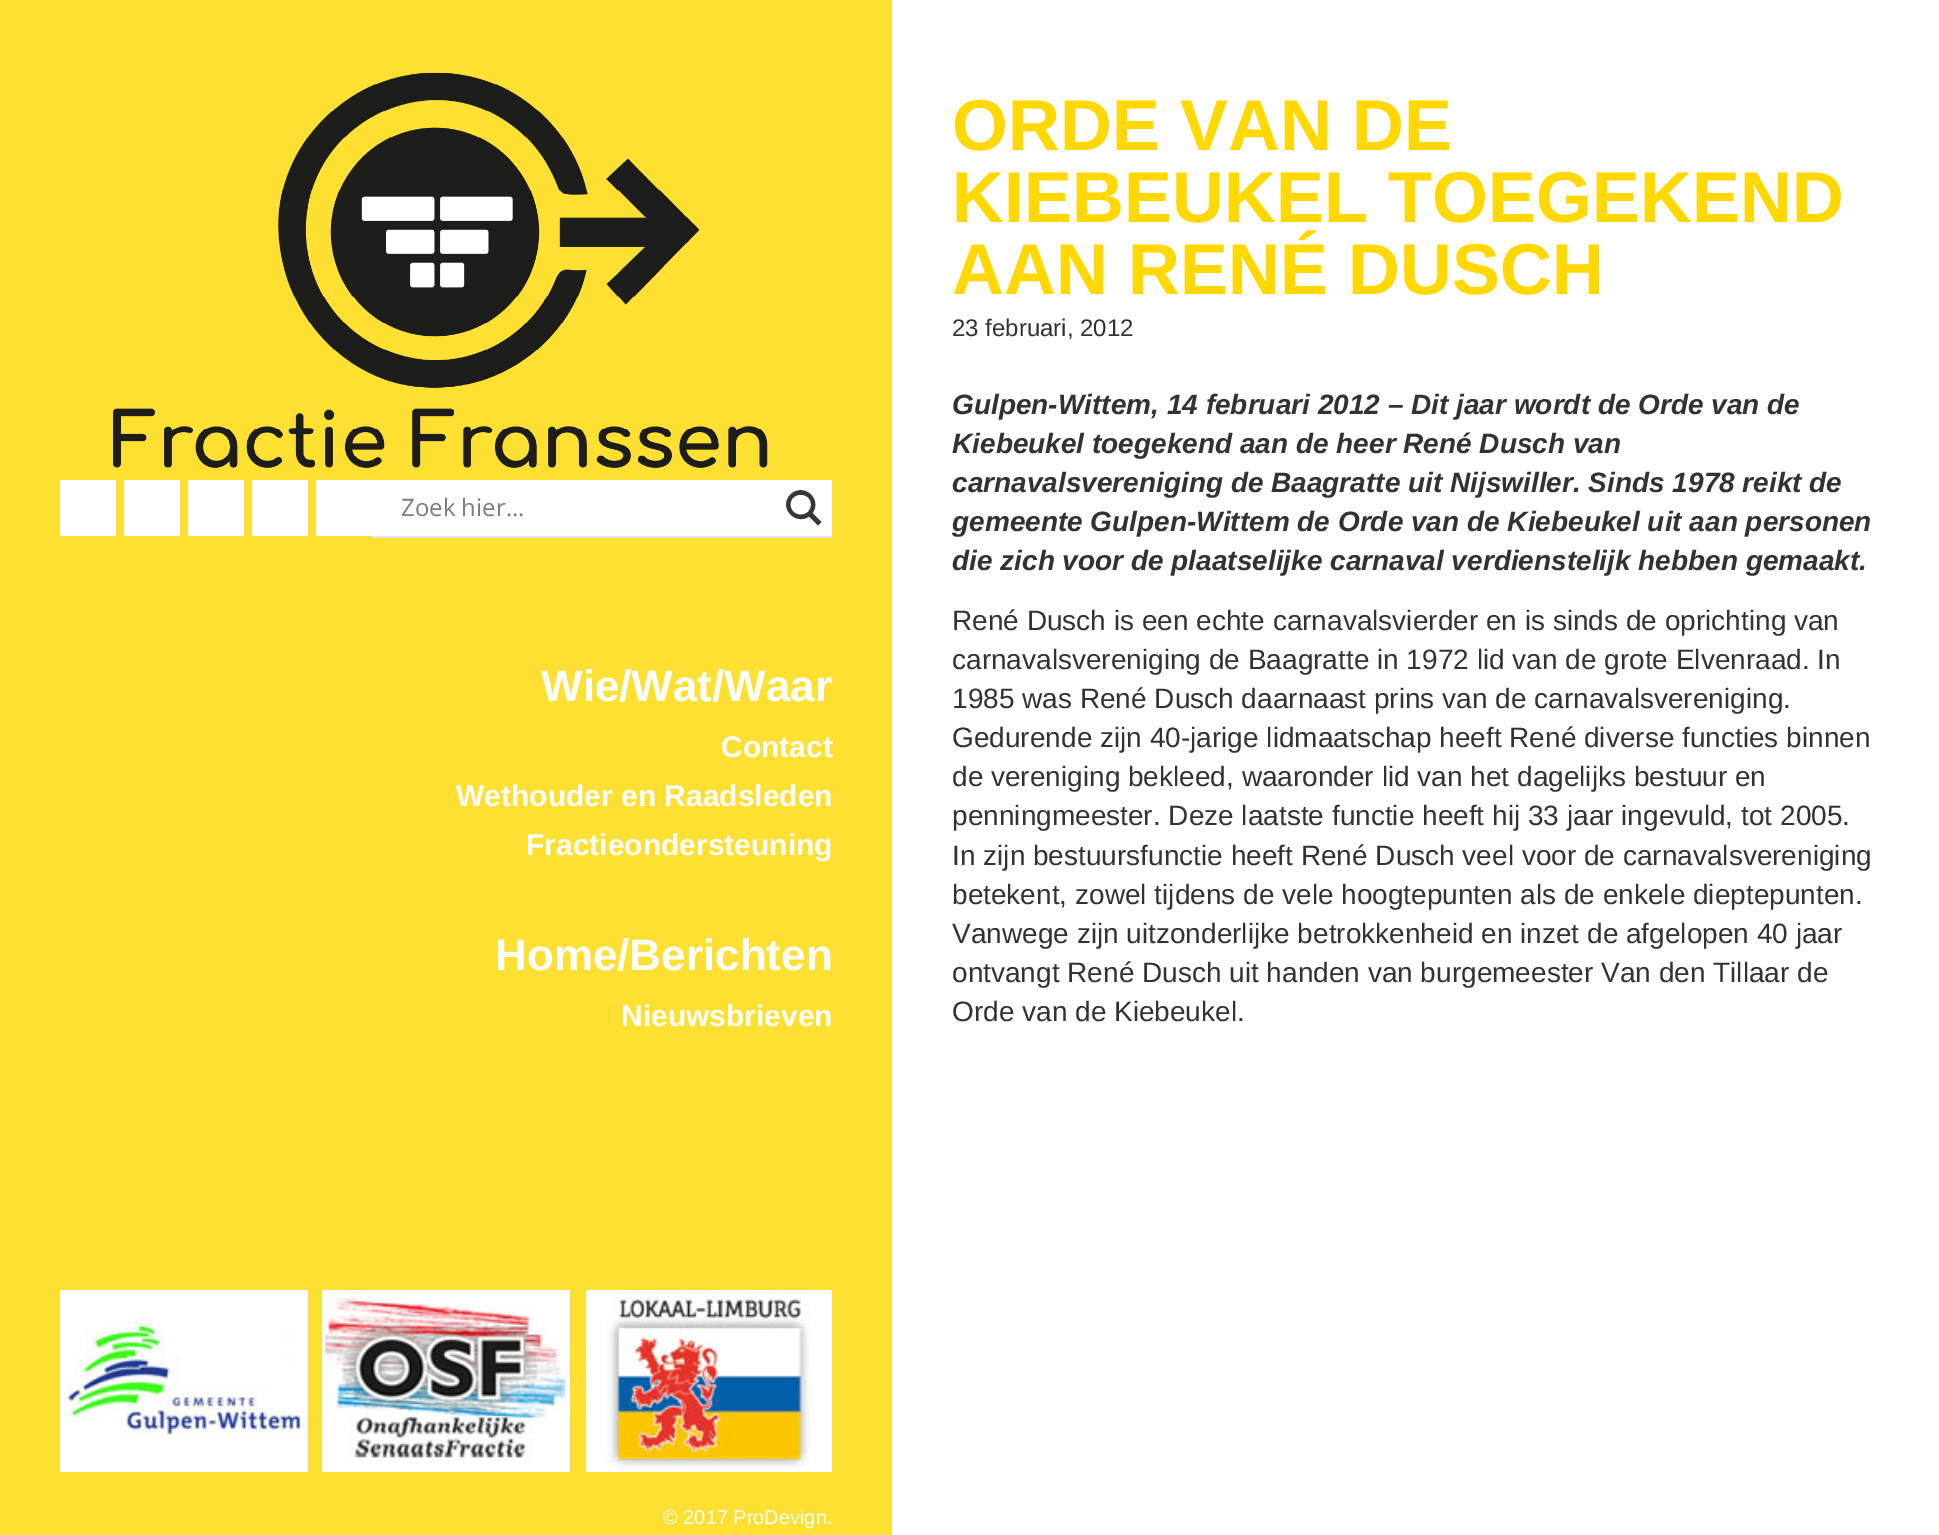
%!PS
<< /PageSize [1939 1535] >> setpagedevice
/rgb { 3 { 255 div 3 1 roll } repeat setrgbcolor } def
/font { [ exch dup neg 0 0 3 -1 roll 0 0 ] selectfont } def
/picture { 5 dict begin { /h /w /y /x /name } { exch def } forall
  gsave x y translate w h scale
  w h 8 [w 0 0 h 0 0] name (r) file false 3 colorimage grestore end } def
0 1535 translate 1 -1 scale
4 setmiterlimit
255 255 255 rgb
0 0 1939 1535 rectfill
254 224 51 rgb
0 0 892 1535 rectfill
(img/1.rgb) 113 72 655 396 picture
[
  [60 480 56 56 255 255 255]
  [124 480 56 56 255 255 255]
  [188 480 56 56 255 255 255]
  [252 480 56 56 255 255 255]
  [316 480 516 56 255 255 255]
  [372 536 460 2 228 228 228]
] { aload pop rgb rectfill } forall
54 54 54 rgb
821.5 522 moveto 812.5 513 lineto 822.5 499 803.5 482 790.5 494.5 curveto 778 507 795 526 809 516.5 curveto 818 525.5 lineto closepath 790.5 504.5 moveto 790.5 491.5 811 491.5 811 504.5 curveto 811 518 790.5 518 790.5 504.5 curveto closepath fill
(img/2.rgb) 60 1290 248 182 picture
(img/3.rgb) 322 1290 248 182 picture
(img/4.rgb) 586 1290 246 182 picture
/OpenSans-Regular 24 font
125 125 125 rgb
401 516 moveto (Zoek hier...) show
/LiberationSans-Bold 44 font
255 255 255 rgb
541 701 moveto (Wie/Wat/Waar) show
/LiberationSans-Bold 30 font
[
  [(Contact) 721 757]
  [(Wethouder en Raadsleden) 456 806]
  [(Fractieondersteuning) 526 855]
] { aload pop moveto show } forall
/LiberationSans-Bold 44 font
495 970 moveto (Home/Berichten) show
/LiberationSans-Bold 30 font
621 1026 moveto (Nieuwsbrieven) show
/LiberationSans-Regular 20 font
663 1524 moveto (© 2017 ProDevign.) show
/LiberationSans-Bold 72 font
254 216 0 rgb
[
  [(ORDE VAN DE) 952 150]
  [(KIEBEUKEL TOEGEKEND) 952 222]
  [(AAN RENÉ DUSCH) 952 294]
] { aload pop moveto show } forall
/LiberationSans-Regular 24 font
50 50 50 rgb
952 336 moveto (23 februari, 2012) show
/LiberationSans-BoldItalic 28 font
[
  [(Gulpen-Wittem, 14 februari 2012 – Dit jaar wordt de Orde van de) 952 414]
  [(Kiebeukel toegekend aan de heer René Dusch van) 952 453]
  [(carnavalsvereniging de Baagratte uit Nijswiller. Sinds 1978 reikt de) 952 492]
  [(gemeente Gulpen-Wittem de Orde van de Kiebeukel uit aan personen) 952 531]
  [(die zich voor de plaatselijke carnaval verdienstelijk hebben gemaakt.) 952 570]
] { aload pop moveto show } forall
/LiberationSans-Regular 28 font
[
  [(René Dusch is een echte carnavalsvierder en is sinds de oprichting van) 952 630]
  [(carnavalsvereniging de Baagratte in 1972 lid van de grote Elvenraad. In) 952 669]
  [(1985 was René Dusch daarnaast prins van de carnavalsvereniging.) 952 708]
  [(Gedurende zijn 40-jarige lidmaatschap heeft René diverse functies binnen) 952 747]
  [(de vereniging bekleed, waaronder lid van het dagelijks bestuur en) 952 786]
  [(penningmeester. Deze laatste functie heeft hij 33 jaar ingevuld, tot 2005.) 952 825]
  [(In zijn bestuursfunctie heeft René Dusch veel voor de carnavalsvereniging) 952 865]
  [(betekent, zowel tijdens de vele hoogtepunten als de enkele dieptepunten.) 952 904]
  [(Vanwege zijn uitzonderlijke betrokkenheid en inzet de afgelopen 40 jaar) 952 943]
  [(ontvangt René Dusch uit handen van burgemeester Van den Tillaar de) 952 982]
  [(Orde van de Kiebeukel.) 952 1021]
] { aload pop moveto show } forall
showpage
